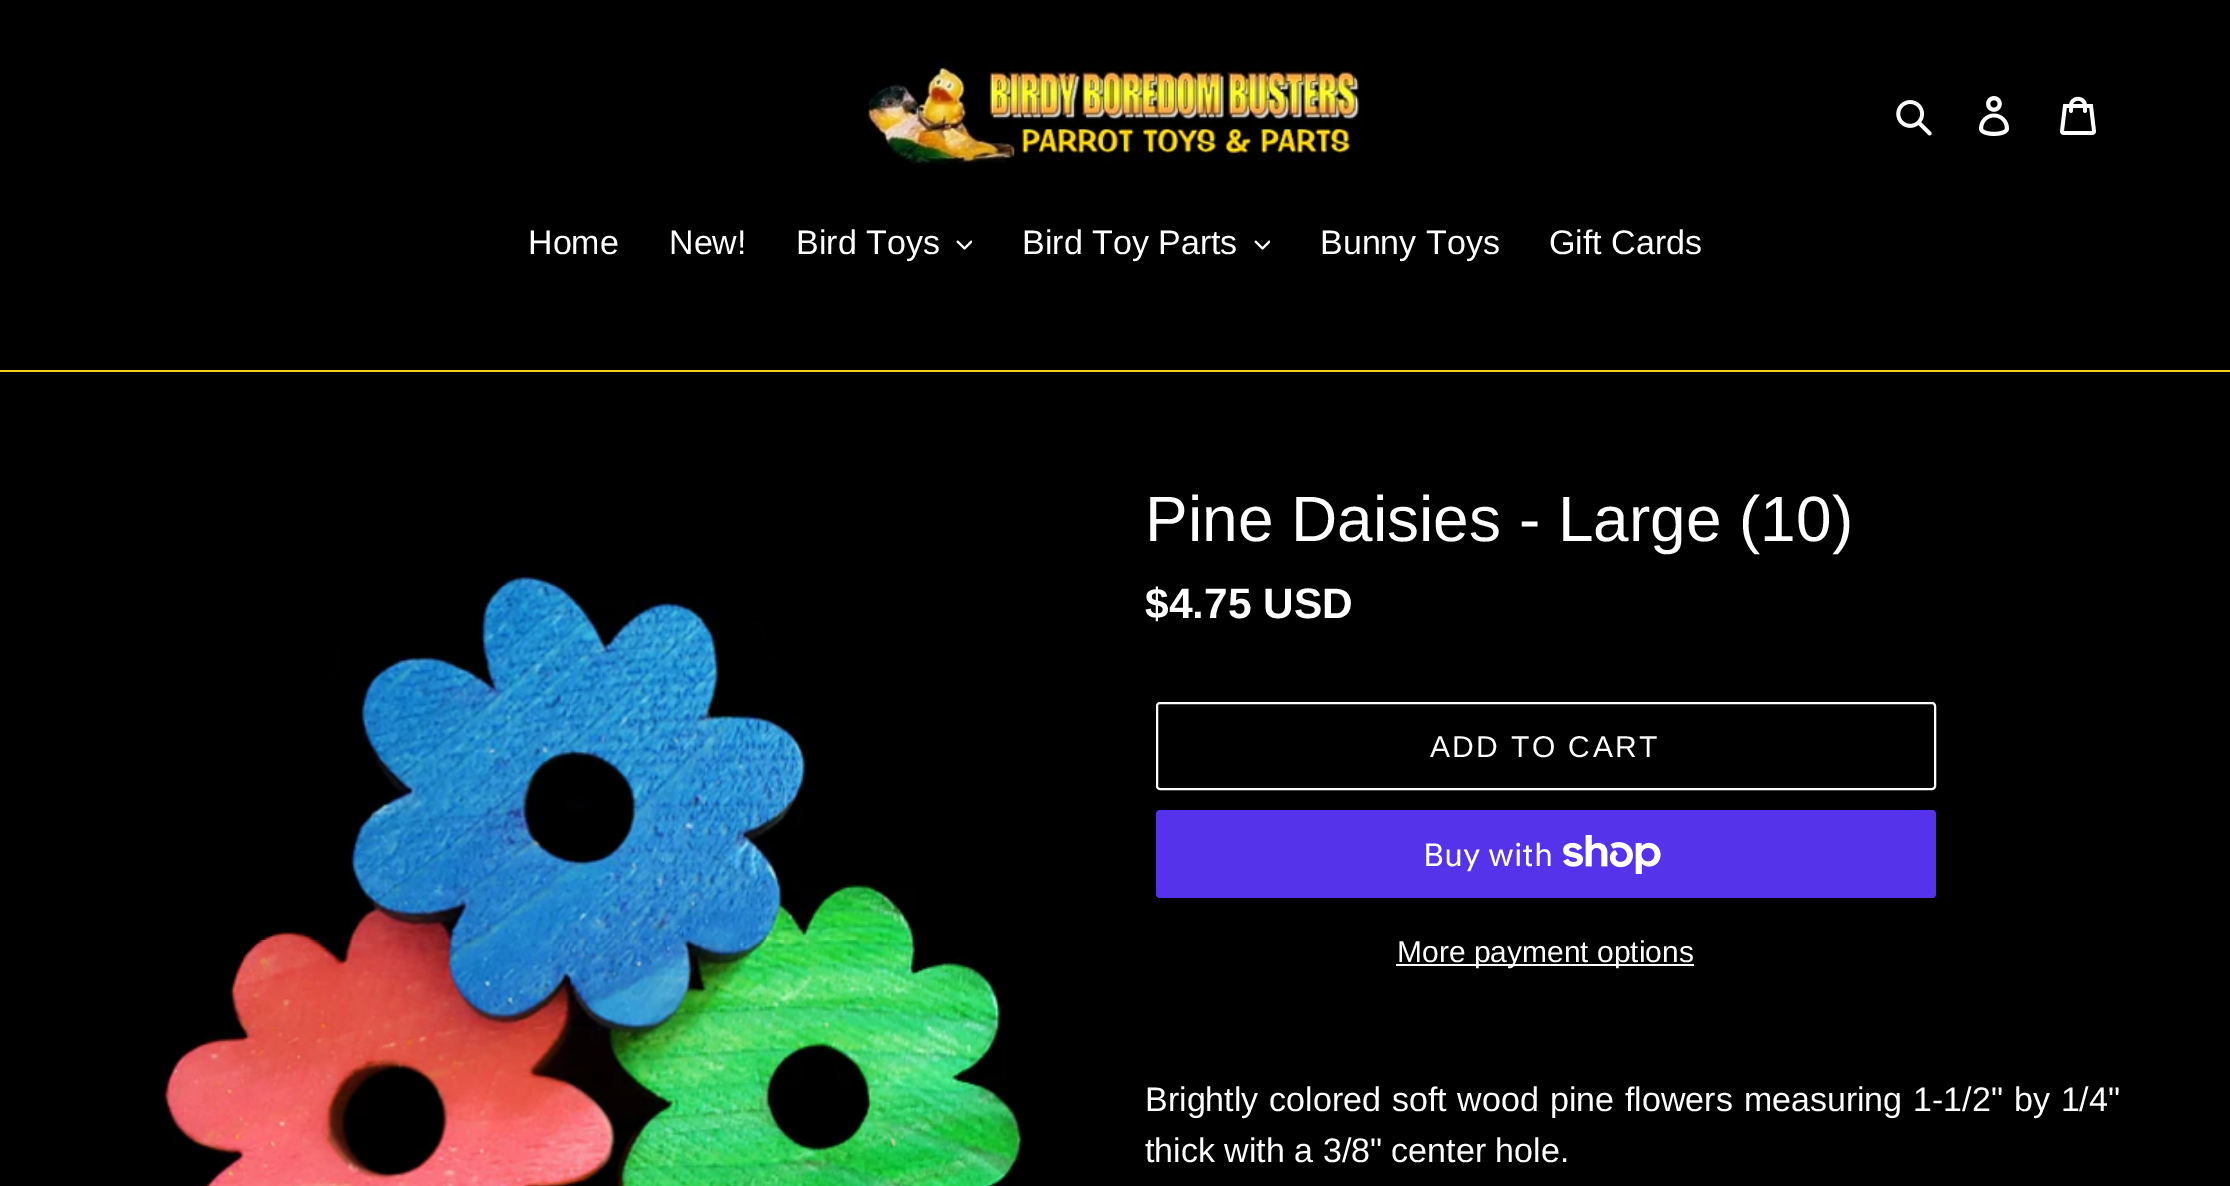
%!PS
<< /PageSize [2230 1186] >> setpagedevice
/rgb { 3 { 255 div 3 1 roll } repeat setrgbcolor } def
/font { [ exch dup neg 0 0 3 -1 roll 0 0 ] selectfont } def
/roundrect { 5 dict begin { /r /h /w /y /x } { exch def } forall
  x r add y moveto x w add y 2 copy h add r arct x w add y h add x 1 index r arct
  x y h add x y r arct x y 2 copy exch w add exch r arct closepath end } def
/picture { 5 dict begin { /h /w /y /x /name } { exch def } forall
  gsave x y translate w h scale
  w h 8 [w 0 0 h 0 0] name (r) file false 3 colorimage grestore end } def
0 1186 translate 1 -1 scale
4 setmiterlimit
0 0 0 rgb
0 0 2230 1186 rectfill
(img/1.rgb) 864 60 500 105 picture
(img/2.rgb) 1896 100 36 36 picture
(img/3.rgb) 1979 96 31 40 picture
(img/4.rgb) 2060 96 36 39 picture
242 210 22 rgb
0 370 2230 2 rectfill
(img/5.rgb) 956 240 16 10 picture
(img/5.rgb) 1254 240 16 10 picture
(img/6.rgb) 163 574 860 612 picture
255 255 255 rgb
2 setlinewidth
1157 703 778 86 3 roundrect stroke
84 51 235 rgb
1156 810 780 88 4 roundrect fill
(img/7.rgb) 1563 835 98 39 picture
255 255 255 rgb
1396 964 298 2 rectfill
/LiberationSans-Regular 34 font
[
  [(Home) 528 254]
  [(New!) 669 254]
  [(Bird Toys) 796 254]
  [(Bird Toy Parts) 1022 254]
  [(Bunny Toys) 1320 254]
  [(Gift Cards) 1549 254]
] { aload pop moveto show } forall
/LiberationSans-Regular 64 font
1145 541 moveto (Pine Daisies - Large \(10\)) show
/LiberationSans-Bold 42.5 font
1145 618 moveto ($4.75 USD) show
/LiberationSans-Regular 30 font
1430 757 moveto 2.4 0 (ADD TO CART) ashow
/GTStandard-Regular 32 font
1423 866 moveto (Buy with) show
/LiberationSans-Regular 30 font
1397 962 moveto (More payment options) show
/LiberationSans-Regular 34 font
1145 1111 moveto 1.5 0 32 (Brightly colored soft wood pine flowers measuring 1-1/2" by 1/4") widthshow
1145 1162 moveto (thick with a 3/8" center hole.) show
showpage
